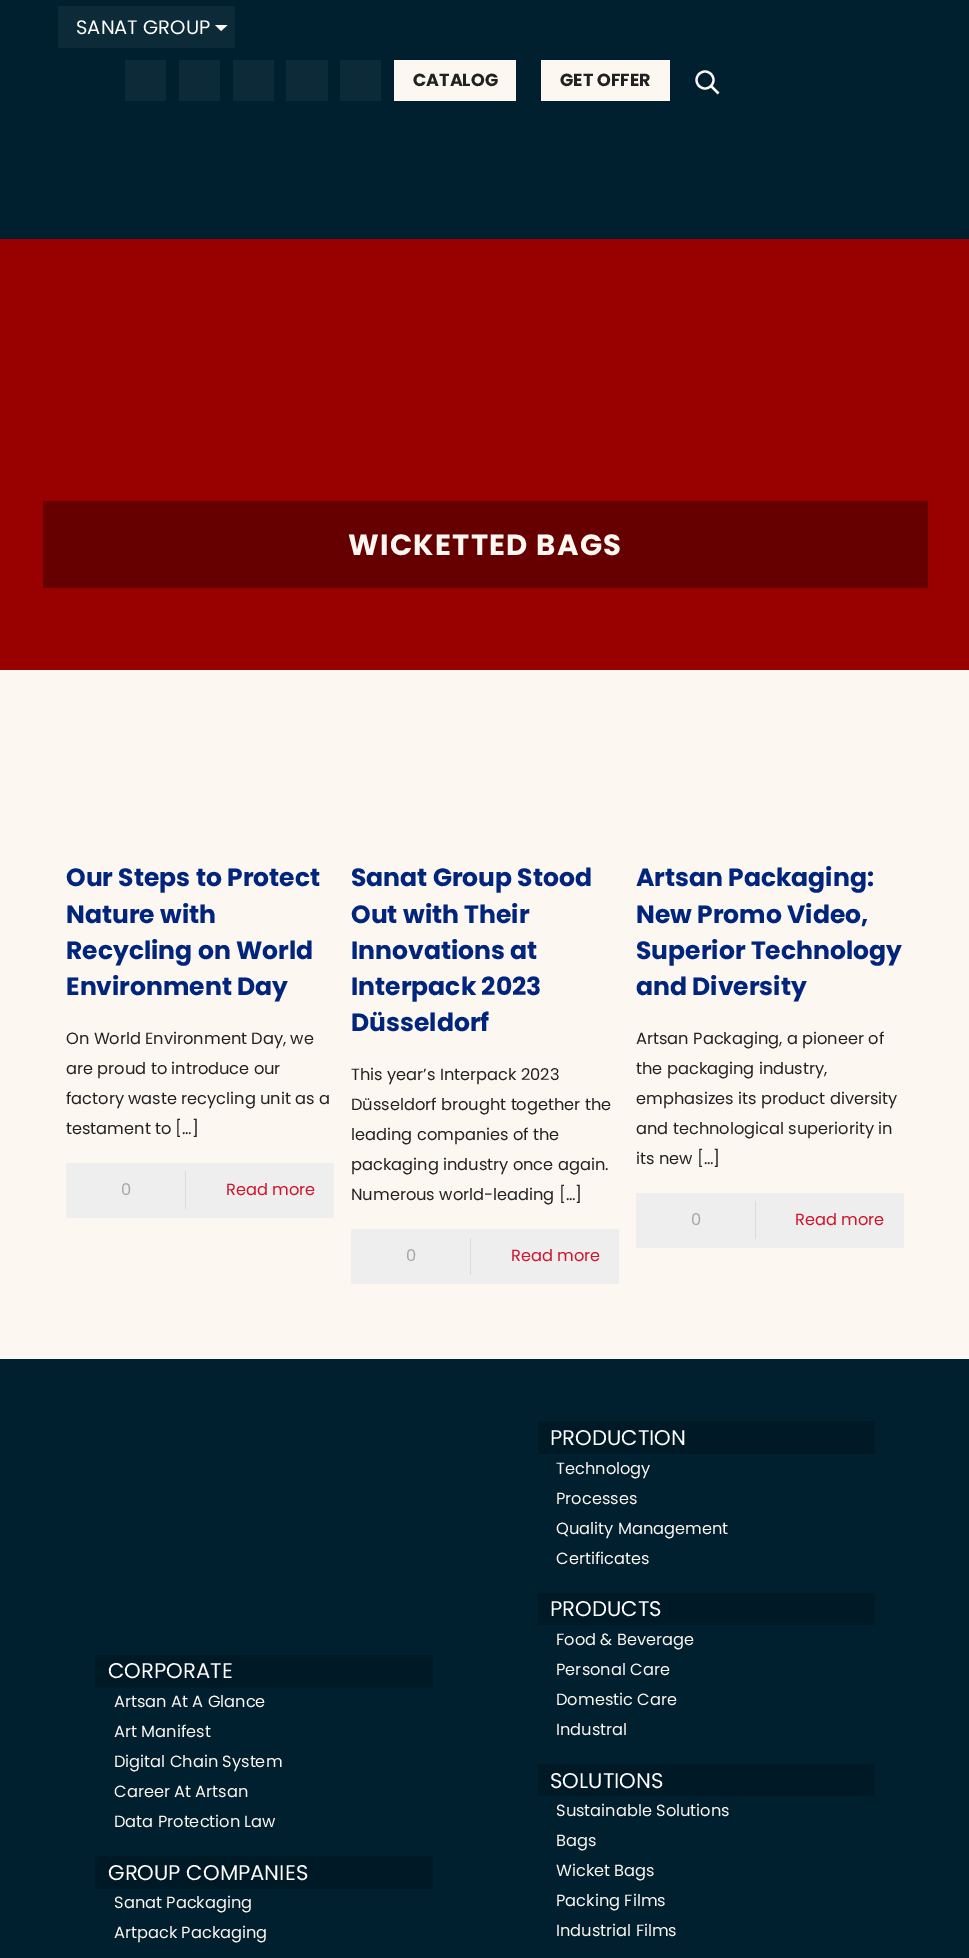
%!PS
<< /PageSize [969 1958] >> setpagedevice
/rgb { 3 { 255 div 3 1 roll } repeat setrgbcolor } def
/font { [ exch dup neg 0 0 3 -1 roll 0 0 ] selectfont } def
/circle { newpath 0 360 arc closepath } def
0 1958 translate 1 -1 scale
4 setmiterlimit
253 247 242 rgb
0 0 969 1958 rectfill
0 31 47 rgb
0 0 969 239 rectfill
13 42 57 rgb
58 6 177 42 rectfill
253 247 242 rgb
215 25 moveto 227.5 25 lineto 221 31 lineto closepath fill
[
  [125 60 41 41 13 42 57]
  [179 60 41 41 13 42 57]
  [233 60 41 41 13 42 57]
  [286 60 42 41 13 42 57]
  [340 60 41 41 13 42 57]
  [394 60 122 41 253 247 242]
  [541 60 129 41 253 247 242]
] { aload pop rgb rectfill } forall
2.2 setlinewidth
705 80 8.5 circle stroke
711 86 moveto 718.5 93.5 lineto stroke
[
  [0 239 969 431 153 0 0]
  [43 501 885 87 102 0 0]
  [66 1163 268 55 238 238 238]
  [185 1171 1 38 219 219 219]
  [351 1229 268 55 238 238 238]
  [470 1238 1 37 219 219 219]
  [636 1193 268 55 238 238 238]
  [755 1201 1 38 219 219 219]
  [0 1359 969 599 0 31 47]
  [95 1655 338 33 0 25 38]
  [95 1856 338 33 0 25 38]
  [538 1421 337 33 0 25 38]
  [538 1593 337 32 0 25 38]
  [538 1764 337 32 0 25 38]
] { aload pop rgb rectfill } forall
/Poppins-Regular 19.5 font
255 255 255 rgb
76 34 moveto (SANAT GROUP) show
/Poppins-Bold 17.5 font
34 34 34 rgb
413 86 moveto (CATALOG) show
560 86 moveto (GET OFFER) show
/Poppins-Bold 29.25 font
253 247 242 rgb
348 555 moveto 1.25 0 (WICKETTED BAGS) ashow
/Poppins-Bold 25 font
1 36 125 rgb
[
  [(Our Steps to Protect) 66 886]
  [(Nature with) 66 923]
  [(Recycling on World) 66 959]
  [(Environment Day) 66 995]
] { aload pop moveto show } forall
/Poppins-Regular 16.25 font
34 34 34 rgb
[
  [(On World Environment Day, we) 66 1044]
  [(are proud to introduce our) 66 1074]
  [(factory waste recycling unit as a) 66 1104]
  [(testament to […]) 66 1134]
] { aload pop moveto show } forall
168 168 168 rgb
121 1195 moveto (0) show
207 20 43 rgb
226 1195 moveto (Read more) show
/Poppins-Bold 25 font
1 36 125 rgb
[
  [(Sanat Group Stood) 351 886]
  [(Out with Their) 351 923]
  [(Innovations at) 351 959]
  [(Interpack 2023) 351 995]
  [(Düsseldorf) 351 1031]
] { aload pop moveto show } forall
/Poppins-Regular 16.25 font
34 34 34 rgb
[
  [(This year’s Interpack 2023) 351 1080]
  [(Düsseldorf brought together the) 351 1110]
  [(leading companies of the) 351 1140]
  [(packaging industry once again.) 351 1170]
  [(Numerous world-leading […]) 351 1200]
] { aload pop moveto show } forall
168 168 168 rgb
406 1261 moveto (0) show
207 20 43 rgb
511 1261 moveto (Read more) show
/Poppins-Bold 25 font
1 36 125 rgb
[
  [(Artsan Packaging:) 636 886]
  [(New Promo Video,) 636 923]
  [(Superior Technology) 636 959]
  [(and Diversity) 636 995]
] { aload pop moveto show } forall
/Poppins-Regular 16.25 font
34 34 34 rgb
[
  [(Artsan Packaging, a pioneer of) 636 1044]
  [(the packaging industry,) 636 1074]
  [(emphasizes its product diversity) 636 1104]
  [(and technological superiority in) 636 1134]
  [(its new […]) 636 1164]
] { aload pop moveto show } forall
168 168 168 rgb
691 1225 moveto (0) show
207 20 43 rgb
795 1225 moveto (Read more) show
/Poppins-Regular 21.25 font
255 255 255 rgb
108 1678 moveto (CORPORATE) show
/Poppins-Regular 16.25 font
253 247 242 rgb
[
  [(Artsan At A Glance) 114 1707]
  [(Art Manifest) 114 1737]
  [(Digital Chain System) 114 1767]
  [(Career At Artsan) 114 1797]
  [(Data Protection Law) 114 1827]
] { aload pop moveto show } forall
/Poppins-Regular 21.25 font
255 255 255 rgb
108 1880 moveto (GROUP COMPANIES) show
/Poppins-Regular 16.25 font
253 247 242 rgb
114 1908 moveto (Sanat Packaging) show
114 1938 moveto (Artpack Packaging) show
/Poppins-Regular 21.25 font
255 255 255 rgb
550 1445 moveto (PRODUCTION) show
/Poppins-Regular 16.25 font
253 247 242 rgb
[
  [(Technology) 556 1474]
  [(Processes) 556 1504]
  [(Quality Management) 556 1534]
  [(Certificates) 556 1564]
] { aload pop moveto show } forall
/Poppins-Regular 21.25 font
255 255 255 rgb
550 1616 moveto (PRODUCTS) show
/Poppins-Regular 16.25 font
253 247 242 rgb
[
  [(Food & Beverage) 556 1645]
  [(Personal Care) 556 1675]
  [(Domestic Care) 556 1705]
  [(Industral) 556 1735]
] { aload pop moveto show } forall
/Poppins-Regular 21.25 font
255 255 255 rgb
550 1788 moveto (SOLUTIONS) show
/Poppins-Regular 16.25 font
253 247 242 rgb
[
  [(Sustainable Solutions) 556 1816]
  [(Bags) 556 1846]
  [(Wicket Bags) 556 1876]
  [(Packing Films) 556 1906]
  [(Industrial Films) 556 1936]
] { aload pop moveto show } forall
showpage
